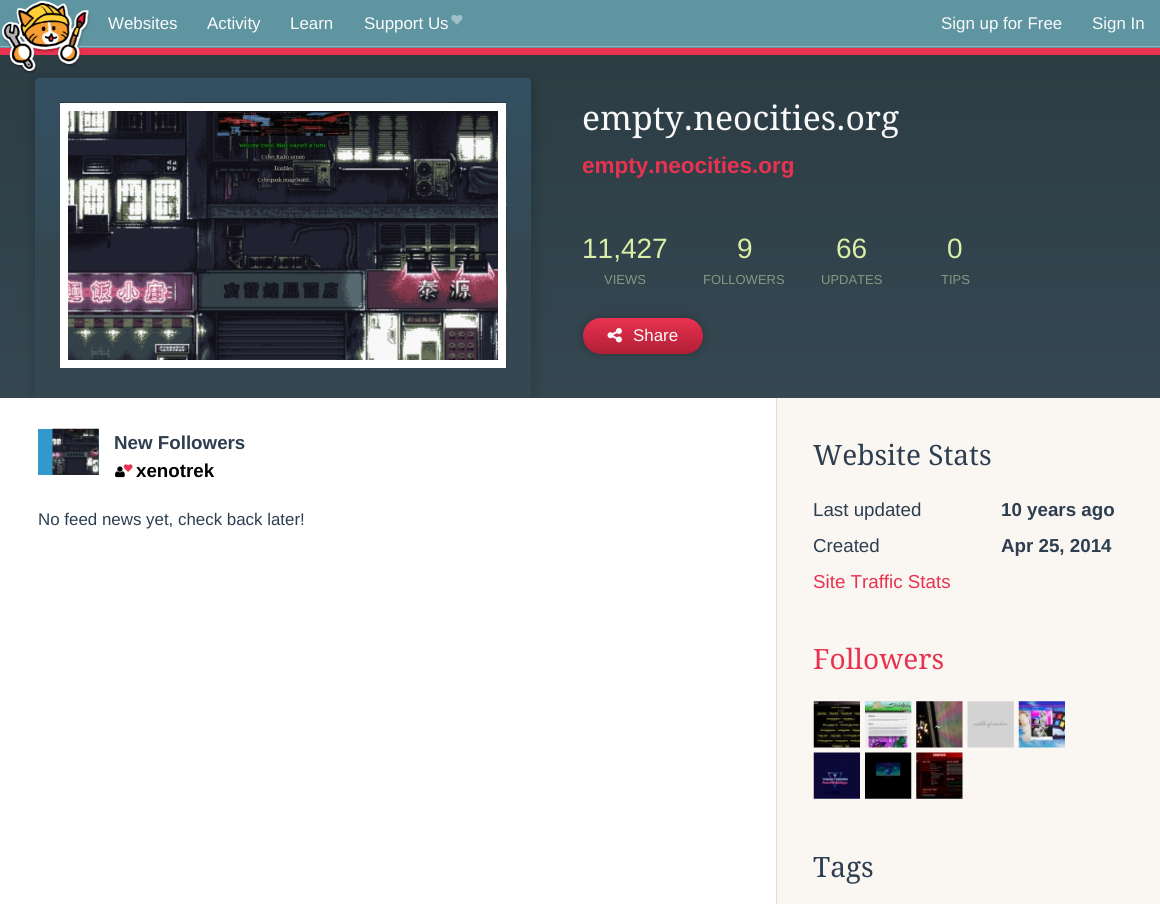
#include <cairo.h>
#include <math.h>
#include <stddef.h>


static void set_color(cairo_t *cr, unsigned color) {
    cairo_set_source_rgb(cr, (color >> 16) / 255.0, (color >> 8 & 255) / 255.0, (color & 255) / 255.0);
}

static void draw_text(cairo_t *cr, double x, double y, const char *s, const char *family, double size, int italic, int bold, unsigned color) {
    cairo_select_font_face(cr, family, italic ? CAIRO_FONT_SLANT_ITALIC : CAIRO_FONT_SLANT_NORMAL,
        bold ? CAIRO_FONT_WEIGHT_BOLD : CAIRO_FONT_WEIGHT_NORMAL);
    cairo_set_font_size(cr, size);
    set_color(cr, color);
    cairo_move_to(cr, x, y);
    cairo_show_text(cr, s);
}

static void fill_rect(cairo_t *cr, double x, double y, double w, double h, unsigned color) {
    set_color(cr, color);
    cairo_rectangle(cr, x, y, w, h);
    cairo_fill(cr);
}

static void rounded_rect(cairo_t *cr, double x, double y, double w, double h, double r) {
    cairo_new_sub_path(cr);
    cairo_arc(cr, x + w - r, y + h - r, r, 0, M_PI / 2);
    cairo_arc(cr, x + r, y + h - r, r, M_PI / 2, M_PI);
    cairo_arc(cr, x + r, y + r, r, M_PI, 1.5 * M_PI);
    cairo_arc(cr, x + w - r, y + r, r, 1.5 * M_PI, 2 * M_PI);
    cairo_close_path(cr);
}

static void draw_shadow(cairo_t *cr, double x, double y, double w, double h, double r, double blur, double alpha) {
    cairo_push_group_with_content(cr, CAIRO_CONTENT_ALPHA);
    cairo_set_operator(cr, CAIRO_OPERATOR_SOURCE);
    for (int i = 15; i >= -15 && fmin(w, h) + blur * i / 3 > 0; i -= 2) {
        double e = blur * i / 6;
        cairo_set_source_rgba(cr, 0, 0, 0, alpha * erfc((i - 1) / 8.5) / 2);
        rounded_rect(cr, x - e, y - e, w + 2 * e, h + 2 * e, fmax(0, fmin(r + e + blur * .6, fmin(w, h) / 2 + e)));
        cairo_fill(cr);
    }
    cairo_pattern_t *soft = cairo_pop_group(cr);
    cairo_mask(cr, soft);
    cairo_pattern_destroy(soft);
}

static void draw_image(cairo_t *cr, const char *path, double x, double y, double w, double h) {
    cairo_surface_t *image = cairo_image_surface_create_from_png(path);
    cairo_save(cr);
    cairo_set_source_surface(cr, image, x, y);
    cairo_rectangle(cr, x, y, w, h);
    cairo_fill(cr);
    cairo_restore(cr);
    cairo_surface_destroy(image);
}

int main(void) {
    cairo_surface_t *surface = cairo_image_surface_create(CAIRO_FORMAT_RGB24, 1160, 904);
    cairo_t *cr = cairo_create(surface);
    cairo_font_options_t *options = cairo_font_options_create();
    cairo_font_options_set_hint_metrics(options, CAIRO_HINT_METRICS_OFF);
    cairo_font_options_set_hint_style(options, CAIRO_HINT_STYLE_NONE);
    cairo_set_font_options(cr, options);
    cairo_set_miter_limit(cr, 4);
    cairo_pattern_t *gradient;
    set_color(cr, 0xFFFFFF);
    cairo_paint(cr);
    gradient = cairo_pattern_create_linear(580, 27, 580, 398);
    cairo_pattern_add_color_stop_rgba(gradient, 0, 0.169, 0.235, 0.263, 1);
    cairo_pattern_add_color_stop_rgba(gradient, 1, 0.208, 0.278, 0.318, 1);
    cairo_set_source(cr, gradient);
    cairo_pattern_destroy(gradient);
    cairo_rectangle(cr, 0, 55, 1160, 343);
    cairo_fill(cr);
    set_color(cr, 0x000000);
    draw_shadow(cr, 34, 78, 501, 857, 8, 7.5, 0.15);
    fill_rect(cr, 0, 48, 1160, 7, 0xE93250);
    fill_rect(cr, 0, 0, 1160, 48, 0x5E95A1);
    fill_rect(cr, 0, 46, 1160, 1, 0x92B4BD);
    draw_image(cr, "assets/img1.png", 1, 0, 90, 73);
    draw_text(cr, 108, 29, "Websites", "Liberation Sans", 16.9, 0, 0, 0xFAFAFA);
    draw_text(cr, 207, 29, "Activity", "Liberation Sans", 16.9, 0, 0, 0xFAFAFA);
    draw_text(cr, 290, 29, "Learn", "Liberation Sans", 16.9, 0, 0, 0xFAFAFA);
    draw_text(cr, 364, 29, "Support Us", "Liberation Sans", 16.9, 0, 0, 0xFAFAFA);
    draw_image(cr, "assets/img2.png", 451, 15, 12, 10);
    draw_text(cr, 941, 29, "Sign up for Free", "Liberation Sans", 16.9, 0, 0, 0xFAFAFA);
    draw_text(cr, 1092, 29, "Sign In", "Liberation Sans", 16.9, 0, 0, 0xFAFAFA);
    set_color(cr, 0x354751);
    cairo_new_path(cr);
    cairo_move_to(cr, 40, 78);
    cairo_line_to(cr, 526, 78);
    cairo_curve_to(cr, 529, 78, 531, 80, 531, 83);
    cairo_line_to(cr, 531, 398);
    cairo_line_to(cr, 35, 398);
    cairo_line_to(cr, 35, 83);
    cairo_curve_to(cr, 35, 80, 37, 78, 40, 78);
    cairo_close_path(cr);
    cairo_fill(cr);
    draw_image(cr, "assets/img3.png", 35, 77, 496, 158);
    draw_image(cr, "assets/img4.png", 60, 102, 447, 266);
    cairo_rectangle(cr, 64, 107, 438, 257);
    set_color(cr, 0xFFFFFF);
    cairo_set_line_width(cr, 8);
    cairo_stroke(cr);
    draw_text(cr, 582, 130, "empty.neocities.org", "Droid Serif", 33.75, 0, 0, 0xFAFAFA);
    draw_text(cr, 582, 173, "empty.neocities.org", "Liberation Sans", 22.5, 0, 1, 0xE93250);
    draw_text(cr, 582, 258, "11,427", "Liberation Sans", 28, 0, 0, 0xDAEEA5);
    draw_text(cr, 604, 284, "VIEWS", "Liberation Sans", 13, 0, 0, 0x84997E);
    draw_text(cr, 737, 258, "9", "Liberation Sans", 28, 0, 0, 0xDAEEA5);
    draw_text(cr, 703, 284, "FOLLOWERS", "Liberation Sans", 13, 0, 0, 0x84997E);
    draw_text(cr, 836, 258, "66", "Liberation Sans", 28, 0, 0, 0xDAEEA5);
    draw_text(cr, 821, 284, "UPDATES", "Liberation Sans", 13, 0, 0, 0x84997E);
    draw_text(cr, 947, 258, "0", "Liberation Sans", 28, 0, 0, 0xDAEEA5);
    draw_text(cr, 941, 284, "TIPS", "Liberation Sans", 13, 0, 0, 0x84997E);
    set_color(cr, 0x000000);
    draw_shadow(cr, 583, 318, 120, 36, 18, 4, 0.25);
    gradient = cairo_pattern_create_linear(643, 318, 643, 354);
    cairo_pattern_add_color_stop_rgba(gradient, 0, 0.914, 0.196, 0.314, 1);
    cairo_pattern_add_color_stop_rgba(gradient, 1, 0.694, 0.122, 0.212, 1);
    cairo_set_source(cr, gradient);
    cairo_pattern_destroy(gradient);
    rounded_rect(cr, 583, 318, 120, 36, 18);
    cairo_fill(cr);
    draw_image(cr, "assets/img5.png", 607, 328, 15, 15);
    draw_text(cr, 633, 341, "Share", "Liberation Sans", 16.9, 0, 0, 0xFAFAFA);
    fill_rect(cr, 777, 398, 383, 506, 0xFAF6F1);
    fill_rect(cr, 776, 398, 1, 506, 0xDDDDDD);
    fill_rect(cr, 23, 398, 523, 506, 0xFFFFFF);
    fill_rect(cr, 38, 429, 61, 46, 0x3399CC);
    draw_image(cr, "assets/img6.png", 52, 428, 47, 47);
    draw_text(cr, 114, 449, "New Followers", "Liberation Sans", 18.75, 0, 1, 0x2C3E50);
    draw_image(cr, "assets/img7.png", 115, 466, 10, 12);
    draw_image(cr, "assets/img8.png", 123, 464, 10, 8);
    draw_text(cr, 136, 477, "xenotrek", "Liberation Sans", 18.75, 0, 1, 0x000000);
    draw_text(cr, 38, 525, "No feed news yet, check back later!", "Liberation Sans", 16.9, 0, 0, 0x2C3E50);
    draw_text(cr, 813, 465, "Website Stats", "Droid Serif", 28, 0, 0, 0x2C3E50);
    draw_text(cr, 813, 516, "Last updated", "Liberation Sans", 18.75, 0, 0, 0x2C3E50);
    draw_text(cr, 1001, 516, "10 years ago", "Liberation Sans", 18.75, 0, 1, 0x2C3E50);
    draw_text(cr, 813, 552, "Created", "Liberation Sans", 18.75, 0, 0, 0x2C3E50);
    draw_text(cr, 1001, 552, "Apr 25, 2014", "Liberation Sans", 18.75, 0, 1, 0x2C3E50);
    draw_text(cr, 813, 588, "Site Traffic Stats", "Liberation Sans", 18.75, 0, 0, 0xE93250);
    draw_text(cr, 813, 669, "Followers", "Droid Serif", 28, 0, 0, 0xE93250);
    draw_image(cr, "assets/img9.png", 813, 701, 47, 47);
    draw_image(cr, "assets/img10.png", 865, 701, 47, 47);
    draw_image(cr, "assets/img11.png", 916, 701, 47, 47);
    draw_image(cr, "assets/img12.png", 967, 701, 47, 47);
    draw_image(cr, "assets/img13.png", 1018, 701, 47, 47);
    draw_image(cr, "assets/img14.png", 813, 752, 47, 47);
    draw_image(cr, "assets/img15.png", 865, 752, 47, 47);
    draw_image(cr, "assets/img16.png", 916, 752, 47, 47);
    draw_text(cr, 813, 877, "Tags", "Droid Serif", 28, 0, 0, 0x2C3E50);
    cairo_surface_write_to_png(surface, "output.png");
    cairo_font_options_destroy(options);
    cairo_destroy(cr);
    cairo_surface_destroy(surface);
    return 0;
}
